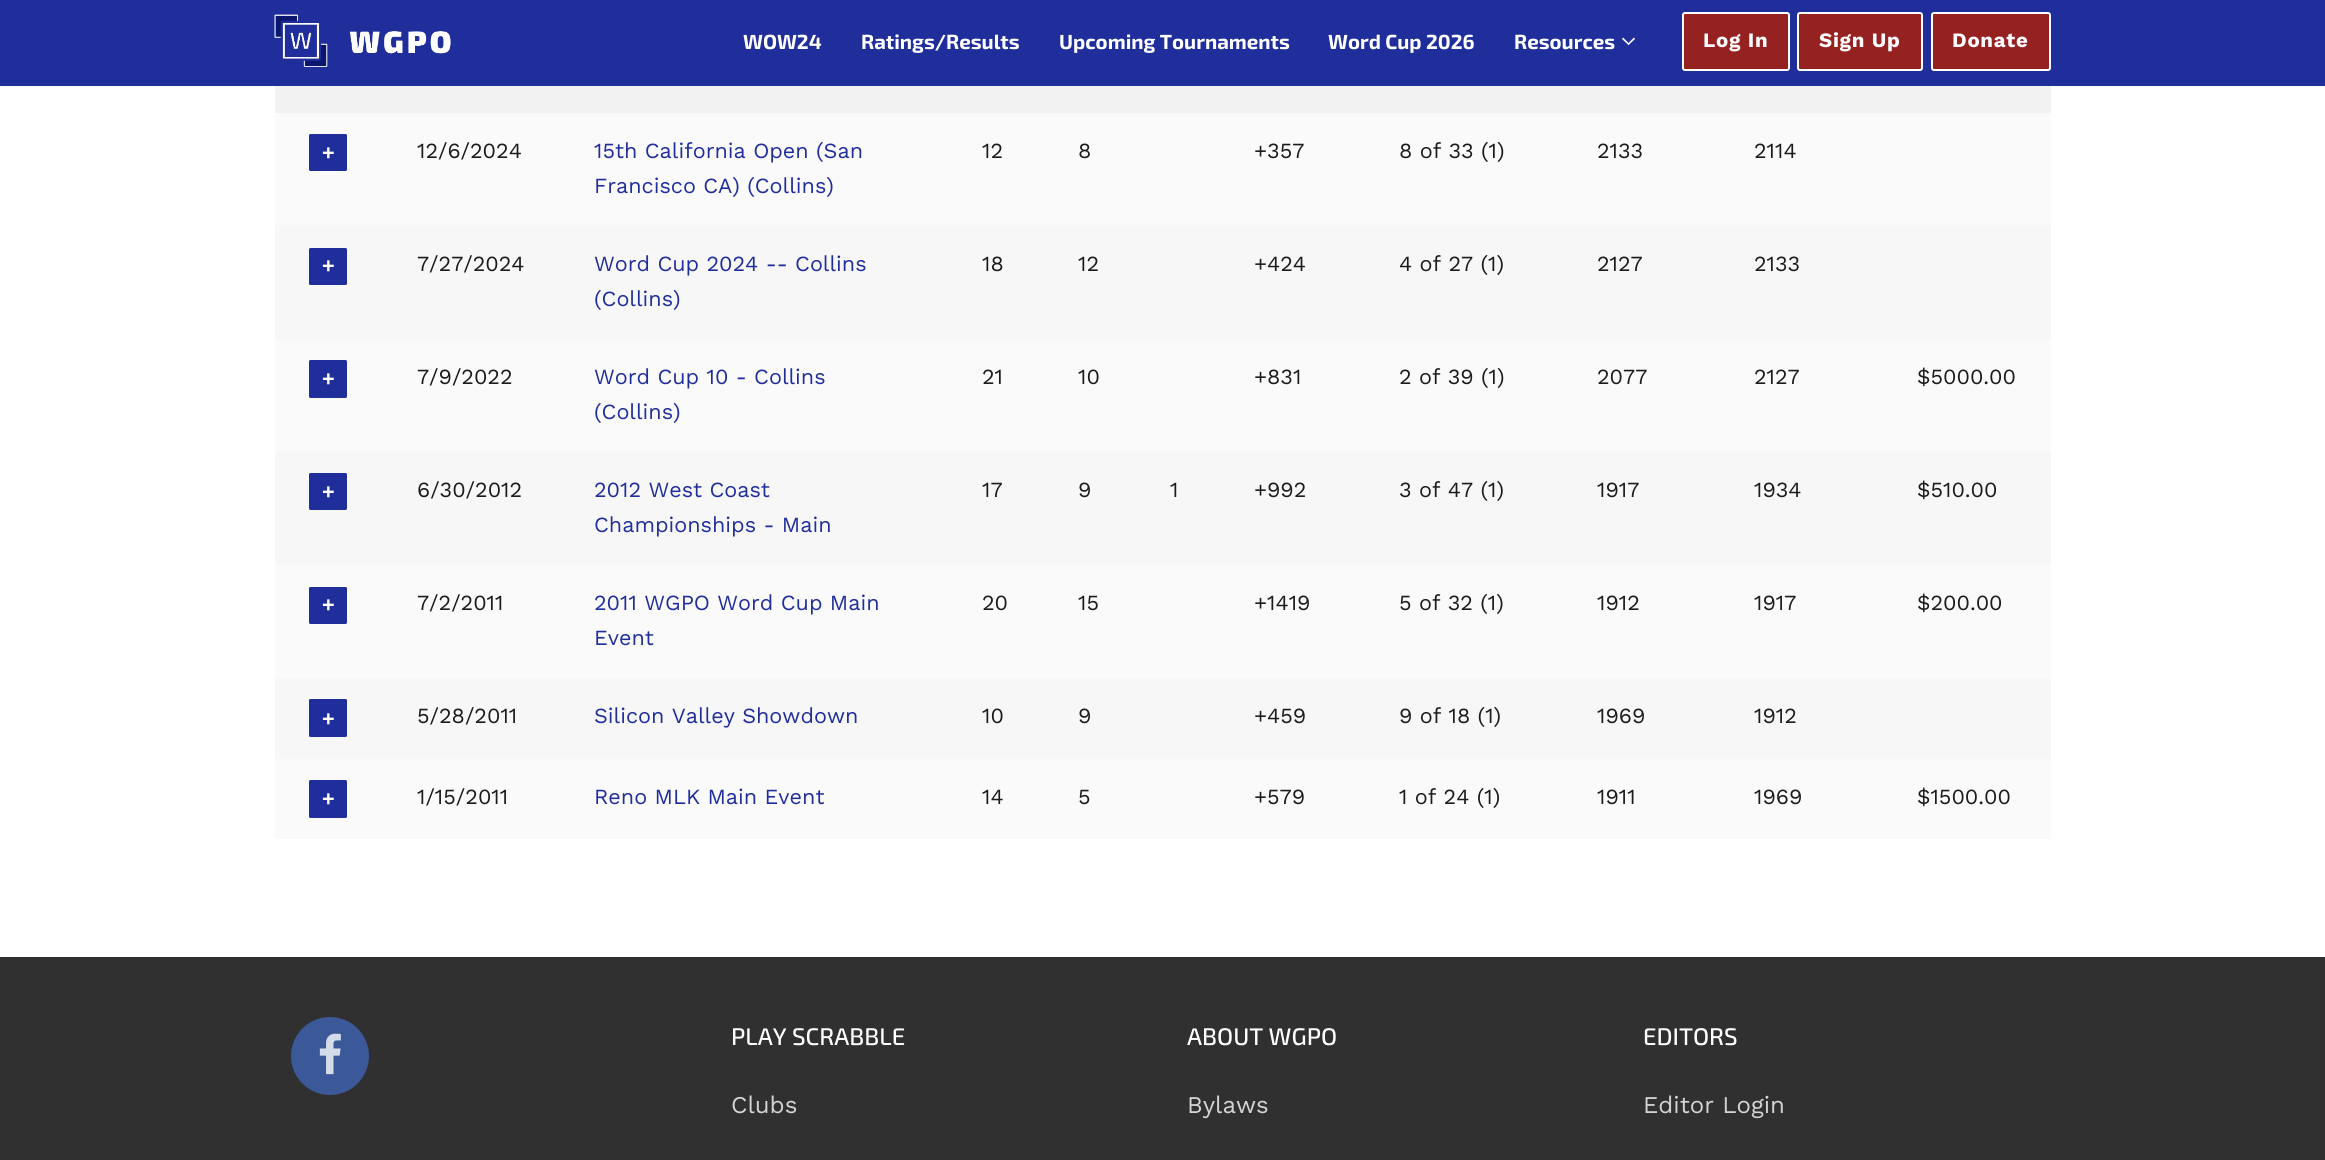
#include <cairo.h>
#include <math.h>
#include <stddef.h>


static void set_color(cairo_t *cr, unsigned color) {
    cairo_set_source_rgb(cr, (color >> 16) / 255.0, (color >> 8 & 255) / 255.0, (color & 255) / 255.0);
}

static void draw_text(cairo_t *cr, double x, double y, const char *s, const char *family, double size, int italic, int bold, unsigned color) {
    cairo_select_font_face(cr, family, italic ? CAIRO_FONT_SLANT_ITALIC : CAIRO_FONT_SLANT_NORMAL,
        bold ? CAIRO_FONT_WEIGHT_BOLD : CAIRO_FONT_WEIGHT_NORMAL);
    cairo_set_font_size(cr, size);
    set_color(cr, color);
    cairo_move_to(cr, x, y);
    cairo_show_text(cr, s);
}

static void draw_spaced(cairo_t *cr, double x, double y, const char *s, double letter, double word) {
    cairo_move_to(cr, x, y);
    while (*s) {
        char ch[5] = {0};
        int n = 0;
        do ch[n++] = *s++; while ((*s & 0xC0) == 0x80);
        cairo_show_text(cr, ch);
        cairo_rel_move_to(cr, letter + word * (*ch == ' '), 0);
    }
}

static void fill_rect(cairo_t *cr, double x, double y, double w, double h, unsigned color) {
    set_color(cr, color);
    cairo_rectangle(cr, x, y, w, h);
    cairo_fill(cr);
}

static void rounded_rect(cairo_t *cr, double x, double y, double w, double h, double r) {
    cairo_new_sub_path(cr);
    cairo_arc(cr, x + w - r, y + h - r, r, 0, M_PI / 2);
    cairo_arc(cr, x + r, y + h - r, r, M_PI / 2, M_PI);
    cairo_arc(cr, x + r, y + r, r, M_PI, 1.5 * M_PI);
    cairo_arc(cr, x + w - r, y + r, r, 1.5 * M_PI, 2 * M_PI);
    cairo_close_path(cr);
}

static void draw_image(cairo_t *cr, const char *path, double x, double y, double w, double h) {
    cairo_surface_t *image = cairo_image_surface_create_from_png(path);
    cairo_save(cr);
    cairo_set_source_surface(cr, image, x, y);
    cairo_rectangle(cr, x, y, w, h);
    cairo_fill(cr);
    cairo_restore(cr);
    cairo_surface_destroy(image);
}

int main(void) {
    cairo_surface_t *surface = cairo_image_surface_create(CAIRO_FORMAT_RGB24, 2325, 1160);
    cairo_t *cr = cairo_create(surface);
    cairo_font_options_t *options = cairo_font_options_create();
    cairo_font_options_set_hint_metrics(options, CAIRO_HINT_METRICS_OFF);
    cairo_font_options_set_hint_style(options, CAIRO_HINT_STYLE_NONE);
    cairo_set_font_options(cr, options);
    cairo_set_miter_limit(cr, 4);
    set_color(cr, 0xFFFFFF);
    cairo_paint(cr);
    fill_rect(cr, 0, 0, 2325, 86, 0x202E9B);
    draw_image(cr, "assets/img1.png", 274, 14, 177, 53);
    draw_text(cr, 743, 49, "WOW24", "Exo 2", 20.4, 0, 1, 0xFFFFFF);
    draw_text(cr, 861, 49, "Ratings/Results", "Exo 2", 20.4, 0, 1, 0xFFFFFF);
    draw_text(cr, 1059, 49, "Upcoming Tournaments", "Exo 2", 20.4, 0, 1, 0xFFFFFF);
    draw_text(cr, 1328, 49, "Word Cup 2026", "Exo 2", 20.4, 0, 1, 0xFFFFFF);
    draw_text(cr, 1514, 49, "Resources", "Exo 2", 20.4, 0, 1, 0xFFFFFF);
    cairo_new_path(cr);
    cairo_move_to(cr, 1628.5, 45);
    cairo_line_to(cr, 1622, 39);
    cairo_line_to(cr, 1623, 37.5);
    cairo_line_to(cr, 1629.5, 44);
    cairo_close_path(cr);
    cairo_fill(cr);
    cairo_new_path(cr);
    cairo_move_to(cr, 1628.5, 45);
    cairo_line_to(cr, 1627.5, 44);
    cairo_line_to(cr, 1634, 37.5);
    cairo_line_to(cr, 1635, 39);
    cairo_close_path(cr);
    cairo_fill(cr);
    set_color(cr, 0x962121);
    rounded_rect(cr, 1683, 13, 106, 57, 2);
    cairo_fill_preserve(cr);
    set_color(cr, 0xFFFFFF);
    cairo_stroke(cr);
    cairo_select_font_face(cr, "Work Sans", CAIRO_FONT_SLANT_NORMAL, CAIRO_FONT_WEIGHT_BOLD);
    draw_spaced(cr, 1703, 47, "Log In", 0.75, 0);
    set_color(cr, 0x962121);
    rounded_rect(cr, 1798, 13, 124, 57, 2);
    cairo_fill_preserve(cr);
    set_color(cr, 0xFFFFFF);
    cairo_stroke(cr);
    draw_spaced(cr, 1819, 47, "Sign Up", 0.75, 0);
    set_color(cr, 0x962121);
    rounded_rect(cr, 1932, 13, 118, 57, 2);
    cairo_fill_preserve(cr);
    set_color(cr, 0xFFFFFF);
    cairo_stroke(cr);
    draw_spaced(cr, 1952, 47, "Donate", 0.75, 0);
    fill_rect(cr, 275, 86, 1776, 27, 0xF2F2F2);
    fill_rect(cr, 275, 113, 1776, 112, 0xFAFAFA);
    set_color(cr, 0x202E9B);
    rounded_rect(cr, 309, 134, 38, 37, 1.5);
    cairo_fill(cr);
    draw_text(cr, 322, 160, "+", "Liberation Sans", 21.6, 0, 1, 0xFFFFFF);
    draw_text(cr, 417, 158, "12/6/2024", "Work Sans", 21.6, 0, 0, 0x1C1C1C);
    draw_text(cr, 594, 158, "15th California Open (San", "Work Sans", 21.6, 0, 0, 0x202E9B);
    draw_text(cr, 594, 193, "Francisco CA) (Collins)", "Work Sans", 21.6, 0, 0, 0x202E9B);
    draw_text(cr, 982, 158, "12", "Work Sans", 21.6, 0, 0, 0x1C1C1C);
    draw_text(cr, 1078, 158, "8", "Work Sans", 21.6, 0, 0, 0x1C1C1C);
    draw_text(cr, 1254, 158, "+357", "Work Sans", 21.6, 0, 0, 0x1C1C1C);
    draw_text(cr, 1399, 158, "8 of 33 (1)", "Work Sans", 21.6, 0, 0, 0x1C1C1C);
    draw_text(cr, 1597, 158, "2133", "Work Sans", 21.6, 0, 0, 0x1C1C1C);
    draw_text(cr, 1754, 158, "2114", "Work Sans", 21.6, 0, 0, 0x1C1C1C);
    fill_rect(cr, 275, 225, 1776, 114, 0xF7F7F7);
    set_color(cr, 0x202E9B);
    rounded_rect(cr, 309, 248, 38, 37, 1.5);
    cairo_fill(cr);
    draw_text(cr, 322, 273, "+", "Liberation Sans", 21.6, 0, 1, 0xFFFFFF);
    draw_text(cr, 417, 271, "7/27/2024", "Work Sans", 21.6, 0, 0, 0x1C1C1C);
    draw_text(cr, 594, 271, "Word Cup 2024 -- Collins", "Work Sans", 21.6, 0, 0, 0x202E9B);
    draw_text(cr, 594, 306, "(Collins)", "Work Sans", 21.6, 0, 0, 0x202E9B);
    draw_text(cr, 982, 271, "18", "Work Sans", 21.6, 0, 0, 0x1C1C1C);
    draw_text(cr, 1078, 271, "12", "Work Sans", 21.6, 0, 0, 0x1C1C1C);
    draw_text(cr, 1254, 271, "+424", "Work Sans", 21.6, 0, 0, 0x1C1C1C);
    draw_text(cr, 1399, 271, "4 of 27 (1)", "Work Sans", 21.6, 0, 0, 0x1C1C1C);
    draw_text(cr, 1597, 271, "2127", "Work Sans", 21.6, 0, 0, 0x1C1C1C);
    draw_text(cr, 1754, 271, "2133", "Work Sans", 21.6, 0, 0, 0x1C1C1C);
    fill_rect(cr, 275, 339, 1776, 113, 0xFAFAFA);
    set_color(cr, 0x202E9B);
    rounded_rect(cr, 309, 360, 38, 38, 1.5);
    cairo_fill(cr);
    draw_text(cr, 322, 386, "+", "Liberation Sans", 21.6, 0, 1, 0xFFFFFF);
    draw_text(cr, 417, 384, "7/9/2022", "Work Sans", 21.6, 0, 0, 0x1C1C1C);
    draw_text(cr, 594, 384, "Word Cup 10 - Collins", "Work Sans", 21.6, 0, 0, 0x202E9B);
    draw_text(cr, 594, 419, "(Collins)", "Work Sans", 21.6, 0, 0, 0x202E9B);
    draw_text(cr, 982, 384, "21", "Work Sans", 21.6, 0, 0, 0x1C1C1C);
    draw_text(cr, 1078, 384, "10", "Work Sans", 21.6, 0, 0, 0x1C1C1C);
    draw_text(cr, 1254, 384, "+831", "Work Sans", 21.6, 0, 0, 0x1C1C1C);
    draw_text(cr, 1399, 384, "2 of 39 (1)", "Work Sans", 21.6, 0, 0, 0x1C1C1C);
    draw_text(cr, 1597, 384, "2077", "Work Sans", 21.6, 0, 0, 0x1C1C1C);
    draw_text(cr, 1754, 384, "2127", "Work Sans", 21.6, 0, 0, 0x1C1C1C);
    draw_text(cr, 1917, 384, "$5000.00", "Work Sans", 21.6, 0, 0, 0x1C1C1C);
    fill_rect(cr, 275, 452, 1776, 112, 0xF7F7F7);
    set_color(cr, 0x202E9B);
    rounded_rect(cr, 309, 473, 38, 37, 1.5);
    cairo_fill(cr);
    draw_text(cr, 322, 499, "+", "Liberation Sans", 21.6, 0, 1, 0xFFFFFF);
    draw_text(cr, 417, 497, "6/30/2012", "Work Sans", 21.6, 0, 0, 0x1C1C1C);
    draw_text(cr, 594, 497, "2012 West Coast", "Work Sans", 21.6, 0, 0, 0x202E9B);
    draw_text(cr, 594, 532, "Championships - Main", "Work Sans", 21.6, 0, 0, 0x202E9B);
    draw_text(cr, 982, 497, "17", "Work Sans", 21.6, 0, 0, 0x1C1C1C);
    draw_text(cr, 1078, 497, "9", "Work Sans", 21.6, 0, 0, 0x1C1C1C);
    draw_text(cr, 1170, 497, "1", "Work Sans", 21.6, 0, 0, 0x1C1C1C);
    draw_text(cr, 1254, 497, "+992", "Work Sans", 21.6, 0, 0, 0x1C1C1C);
    draw_text(cr, 1399, 497, "3 of 47 (1)", "Work Sans", 21.6, 0, 0, 0x1C1C1C);
    draw_text(cr, 1597, 497, "1917", "Work Sans", 21.6, 0, 0, 0x1C1C1C);
    draw_text(cr, 1754, 497, "1934", "Work Sans", 21.6, 0, 0, 0x1C1C1C);
    draw_text(cr, 1917, 497, "$510.00", "Work Sans", 21.6, 0, 0, 0x1C1C1C);
    fill_rect(cr, 275, 564, 1776, 114, 0xFAFAFA);
    set_color(cr, 0x202E9B);
    rounded_rect(cr, 309, 587, 38, 37, 1.5);
    cairo_fill(cr);
    draw_text(cr, 322, 612, "+", "Liberation Sans", 21.6, 0, 1, 0xFFFFFF);
    draw_text(cr, 417, 610, "7/2/2011", "Work Sans", 21.6, 0, 0, 0x1C1C1C);
    draw_text(cr, 594, 610, "2011 WGPO Word Cup Main", "Work Sans", 21.6, 0, 0, 0x202E9B);
    draw_text(cr, 594, 645, "Event", "Work Sans", 21.6, 0, 0, 0x202E9B);
    draw_text(cr, 982, 610, "20", "Work Sans", 21.6, 0, 0, 0x1C1C1C);
    draw_text(cr, 1078, 610, "15", "Work Sans", 21.6, 0, 0, 0x1C1C1C);
    draw_text(cr, 1254, 610, "+1419", "Work Sans", 21.6, 0, 0, 0x1C1C1C);
    draw_text(cr, 1399, 610, "5 of 32 (1)", "Work Sans", 21.6, 0, 0, 0x1C1C1C);
    draw_text(cr, 1597, 610, "1912", "Work Sans", 21.6, 0, 0, 0x1C1C1C);
    draw_text(cr, 1754, 610, "1917", "Work Sans", 21.6, 0, 0, 0x1C1C1C);
    draw_text(cr, 1917, 610, "$200.00", "Work Sans", 21.6, 0, 0, 0x1C1C1C);
    fill_rect(cr, 275, 678, 1776, 81, 0xF7F7F7);
    set_color(cr, 0x202E9B);
    rounded_rect(cr, 309, 699, 38, 38, 1.5);
    cairo_fill(cr);
    draw_text(cr, 322, 726, "+", "Liberation Sans", 21.6, 0, 1, 0xFFFFFF);
    draw_text(cr, 417, 723, "5/28/2011", "Work Sans", 21.6, 0, 0, 0x1C1C1C);
    draw_text(cr, 594, 723, "Silicon Valley Showdown", "Work Sans", 21.6, 0, 0, 0x202E9B);
    draw_text(cr, 982, 723, "10", "Work Sans", 21.6, 0, 0, 0x1C1C1C);
    draw_text(cr, 1078, 723, "9", "Work Sans", 21.6, 0, 0, 0x1C1C1C);
    draw_text(cr, 1254, 723, "+459", "Work Sans", 21.6, 0, 0, 0x1C1C1C);
    draw_text(cr, 1399, 723, "9 of 18 (1)", "Work Sans", 21.6, 0, 0, 0x1C1C1C);
    draw_text(cr, 1597, 723, "1969", "Work Sans", 21.6, 0, 0, 0x1C1C1C);
    draw_text(cr, 1754, 723, "1912", "Work Sans", 21.6, 0, 0, 0x1C1C1C);
    fill_rect(cr, 275, 759, 1776, 80, 0xFAFAFA);
    set_color(cr, 0x202E9B);
    rounded_rect(cr, 309, 780, 38, 38, 1.5);
    cairo_fill(cr);
    draw_text(cr, 322, 806, "+", "Liberation Sans", 21.6, 0, 1, 0xFFFFFF);
    draw_text(cr, 417, 804, "1/15/2011", "Work Sans", 21.6, 0, 0, 0x1C1C1C);
    draw_text(cr, 594, 804, "Reno MLK Main Event", "Work Sans", 21.6, 0, 0, 0x202E9B);
    draw_text(cr, 982, 804, "14", "Work Sans", 21.6, 0, 0, 0x1C1C1C);
    draw_text(cr, 1078, 804, "5", "Work Sans", 21.6, 0, 0, 0x1C1C1C);
    draw_text(cr, 1254, 804, "+579", "Work Sans", 21.6, 0, 0, 0x1C1C1C);
    draw_text(cr, 1399, 804, "1 of 24 (1)", "Work Sans", 21.6, 0, 0, 0x1C1C1C);
    draw_text(cr, 1597, 804, "1911", "Work Sans", 21.6, 0, 0, 0x1C1C1C);
    draw_text(cr, 1754, 804, "1969", "Work Sans", 21.6, 0, 0, 0x1C1C1C);
    draw_text(cr, 1917, 804, "$1500.00", "Work Sans", 21.6, 0, 0, 0x1C1C1C);
    fill_rect(cr, 0, 957, 2325, 203, 0x303030);
    set_color(cr, 0x3B5998);
    cairo_new_path(cr);
    cairo_arc(cr, 330, 1056, 39, 0, 2 * M_PI);
    cairo_fill(cr);
    draw_image(cr, "assets/img2.png", 319, 1033, 22, 42);
    draw_text(cr, 731, 1045, "PLAY SCRABBLE", "Exo 2 Medium", 24, 0, 0, 0xFFFFFF);
    draw_text(cr, 731, 1113, "Clubs", "Work Sans", 24, 0, 0, 0xD4D4D4);
    draw_text(cr, 1187, 1045, "ABOUT WGPO", "Exo 2 Medium", 24, 0, 0, 0xFFFFFF);
    draw_text(cr, 1187, 1113, "Bylaws", "Work Sans", 24, 0, 0, 0xD4D4D4);
    draw_text(cr, 1643, 1045, "EDITORS", "Exo 2 Medium", 24, 0, 0, 0xFFFFFF);
    draw_text(cr, 1643, 1113, "Editor Login", "Work Sans", 24, 0, 0, 0xD4D4D4);
    cairo_surface_write_to_png(surface, "output.png");
    cairo_font_options_destroy(options);
    cairo_destroy(cr);
    cairo_surface_destroy(surface);
    return 0;
}
